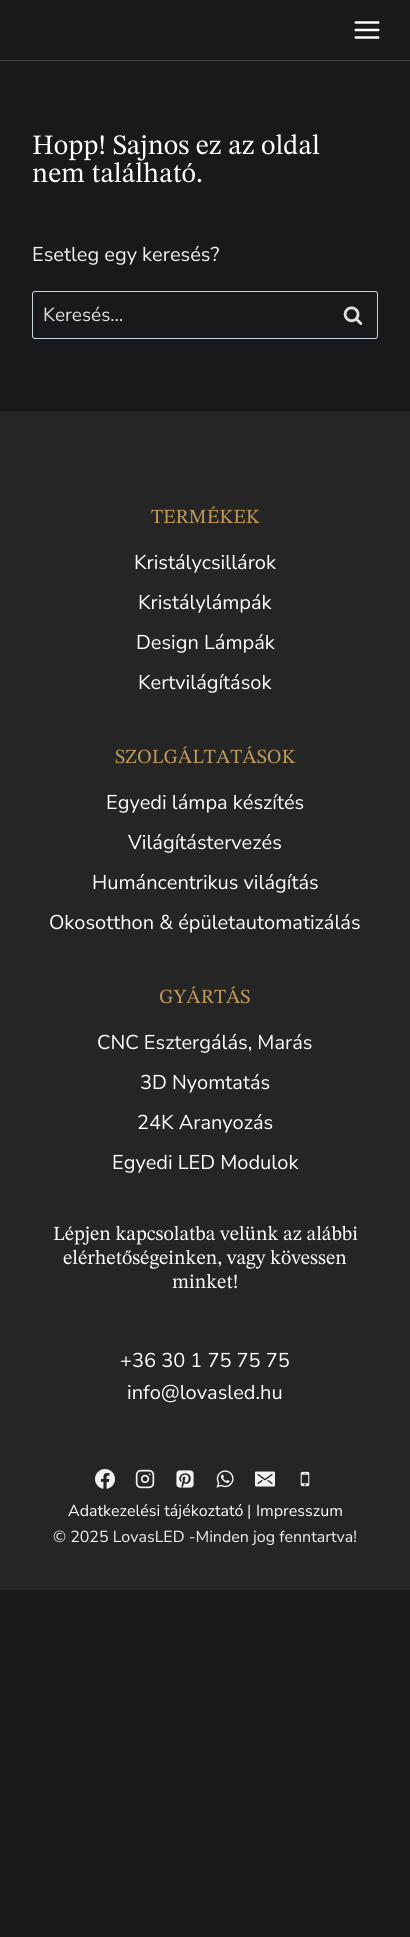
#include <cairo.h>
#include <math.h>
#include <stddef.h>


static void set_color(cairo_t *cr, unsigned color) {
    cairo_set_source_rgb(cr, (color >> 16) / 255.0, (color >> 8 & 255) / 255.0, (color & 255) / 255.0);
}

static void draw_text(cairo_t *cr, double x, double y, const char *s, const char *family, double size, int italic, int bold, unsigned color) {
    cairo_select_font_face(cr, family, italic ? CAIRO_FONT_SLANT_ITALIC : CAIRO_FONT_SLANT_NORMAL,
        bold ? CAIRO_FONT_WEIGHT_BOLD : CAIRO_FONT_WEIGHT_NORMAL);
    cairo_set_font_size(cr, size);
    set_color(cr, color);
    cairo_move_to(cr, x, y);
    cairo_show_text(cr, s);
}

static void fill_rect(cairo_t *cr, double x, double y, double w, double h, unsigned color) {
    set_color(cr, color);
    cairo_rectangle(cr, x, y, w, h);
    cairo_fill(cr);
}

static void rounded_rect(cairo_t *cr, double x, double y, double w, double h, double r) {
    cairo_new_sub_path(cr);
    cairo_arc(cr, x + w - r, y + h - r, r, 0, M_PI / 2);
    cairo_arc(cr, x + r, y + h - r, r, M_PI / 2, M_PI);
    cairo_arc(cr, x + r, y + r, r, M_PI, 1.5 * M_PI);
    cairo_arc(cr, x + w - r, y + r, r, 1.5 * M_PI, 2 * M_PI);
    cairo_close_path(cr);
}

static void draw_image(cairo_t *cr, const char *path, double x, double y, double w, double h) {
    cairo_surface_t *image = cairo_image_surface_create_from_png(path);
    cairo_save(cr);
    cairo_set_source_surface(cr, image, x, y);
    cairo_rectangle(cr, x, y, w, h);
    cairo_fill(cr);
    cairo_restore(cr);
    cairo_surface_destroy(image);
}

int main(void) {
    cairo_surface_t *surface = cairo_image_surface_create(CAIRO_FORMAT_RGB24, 410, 1937);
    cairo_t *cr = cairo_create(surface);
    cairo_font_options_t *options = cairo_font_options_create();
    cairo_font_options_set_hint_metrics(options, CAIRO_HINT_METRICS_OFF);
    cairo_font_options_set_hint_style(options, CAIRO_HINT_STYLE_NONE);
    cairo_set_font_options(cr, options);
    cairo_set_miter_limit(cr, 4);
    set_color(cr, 0x19191B);
    cairo_paint(cr);
    fill_rect(cr, 0, 60, 410, 1, 0x4B4536);
    draw_image(cr, "assets/img1.png", 354, 21, 26, 18);
    draw_text(cr, 32, 154, "Hopp! Sajnos ez az oldal", "STIX Two Text", 28, 0, 0, 0xFFFFFF);
    draw_text(cr, 32, 182, "nem található.", "STIX Two Text", 28, 0, 0, 0xFFFFFF);
    draw_text(cr, 32, 261, "Esetleg egy keresés?", "Nunito Sans", 20, 0, 0, 0xF2F2F2);
    rounded_rect(cr, 32.5, 291.5, 345, 47, 2.5);
    set_color(cr, 0xCBD5E0);
    cairo_set_line_width(cr, 1);
    cairo_stroke(cr);
    draw_text(cr, 43, 321, "Keresés…", "Nunito Sans", 19, 0, 0, 0xE1E1E1);
    draw_image(cr, "assets/img2.png", 343, 306, 20, 19);
    fill_rect(cr, 0, 411, 410, 1179, 0x252526);
    draw_text(cr, 151, 523, "TERMÉKEK", "STIX Two Text", 20, 0, 0, 0xC19A5B);
    draw_text(cr, 134, 569, "Kristálycsillárok", "Nunito Sans", 20, 0, 0, 0xFFFFFF);
    draw_text(cr, 138, 609, "Kristálylámpák", "Nunito Sans", 20, 0, 0, 0xFFFFFF);
    draw_text(cr, 136, 649, "Design Lámpák", "Nunito Sans", 20, 0, 0, 0xFFFFFF);
    draw_text(cr, 138, 689, "Kertvilágítások", "Nunito Sans", 20, 0, 0, 0xFFFFFF);
    draw_text(cr, 115, 763, "SZOLGÁLTATÁSOK", "STIX Two Text", 20, 0, 0, 0xC19A5B);
    draw_text(cr, 106, 809, "Egyedi lámpa készítés", "Nunito Sans", 20, 0, 0, 0xFFFFFF);
    draw_text(cr, 128, 849, "Világítástervezés", "Nunito Sans", 20, 0, 0, 0xFFFFFF);
    draw_text(cr, 92, 889, "Humáncentrikus világítás", "Nunito Sans", 20, 0, 0, 0xFFFFFF);
    draw_text(cr, 49, 929, "Okosotthon & épületautomatizálás", "Nunito Sans", 20, 0, 0, 0xFFFFFF);
    draw_text(cr, 159, 1003, "GYÁRTÁS", "STIX Two Text", 20, 0, 0, 0xC19A5B);
    draw_text(cr, 97, 1049, "CNC Esztergálás, Marás", "Nunito Sans", 20, 0, 0, 0xFFFFFF);
    draw_text(cr, 140, 1089, "3D Nyomtatás", "Nunito Sans", 20, 0, 0, 0xFFFFFF);
    draw_text(cr, 137, 1129, "24K Aranyozás", "Nunito Sans", 20, 0, 0, 0xFFFFFF);
    draw_text(cr, 112, 1169, "Egyedi LED Modulok", "Nunito Sans", 20, 0, 0, 0xFFFFFF);
    draw_text(cr, 53, 1240, "Lépjen kapcsolatba velünk az alábbi", "STIX Two Text", 20, 0, 0, 0xFFFFFF);
    draw_text(cr, 63, 1264, "elérhetőségeinken, vagy kövessen", "STIX Two Text", 20, 0, 0, 0xFFFFFF);
    draw_text(cr, 172, 1288, "minket!", "STIX Two Text", 20, 0, 0, 0xFFFFFF);
    draw_text(cr, 120, 1367, "+36 30 1 75 75 75", "Nunito Sans", 20, 0, 0, 0xFFFFFF);
    draw_text(cr, 127, 1399, "info@lovasled.hu", "Nunito Sans", 20, 0, 0, 0xFFFFFF);
    draw_image(cr, "assets/img3.png", 95, 1469, 20, 20);
    draw_image(cr, "assets/img4.png", 135, 1469, 20, 20);
    draw_image(cr, "assets/img5.png", 176, 1470, 18, 18);
    draw_image(cr, "assets/img6.png", 216, 1470, 18, 18);
    draw_image(cr, "assets/img7.png", 255, 1471, 20, 16);
    draw_image(cr, "assets/img8.png", 300, 1471, 10, 16);
    draw_text(cr, 68, 1516, "Adatkezelési tájékoztató", "Nunito Sans", 16, 0, 0, 0xFFFFFF);
    draw_text(cr, 247, 1516, "|", "Nunito Sans", 16, 0, 0, 0xF2F2F2);
    draw_text(cr, 256, 1516, "Impresszum", "Nunito Sans", 16, 0, 0, 0xFFFFFF);
    draw_text(cr, 53, 1542, "© 2025 LovasLED -Minden jog fenntartva!", "Nunito Sans", 16, 0, 0, 0xF2F2F2);
    cairo_surface_write_to_png(surface, "output.png");
    cairo_font_options_destroy(options);
    cairo_destroy(cr);
    cairo_surface_destroy(surface);
    return 0;
}
